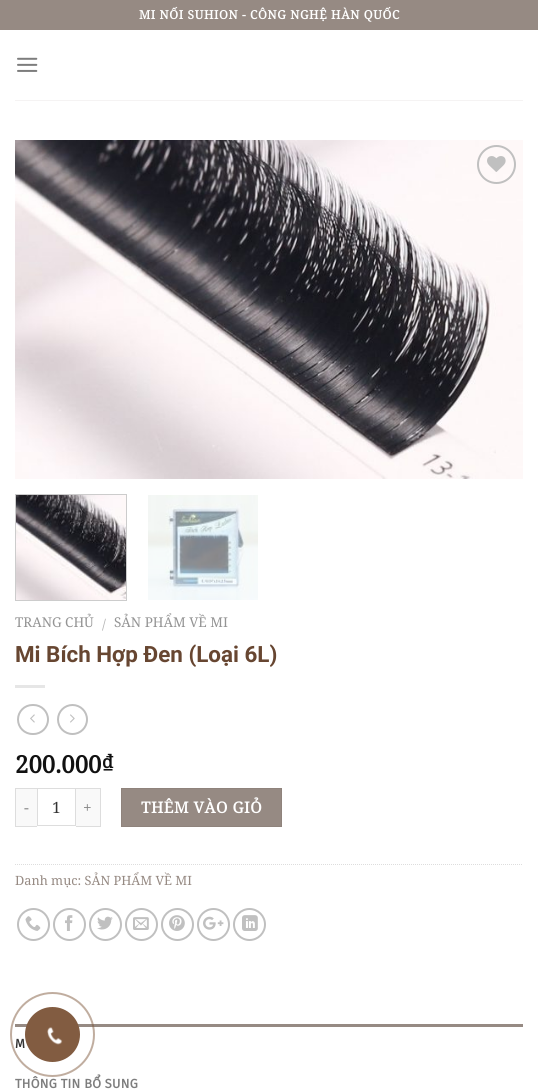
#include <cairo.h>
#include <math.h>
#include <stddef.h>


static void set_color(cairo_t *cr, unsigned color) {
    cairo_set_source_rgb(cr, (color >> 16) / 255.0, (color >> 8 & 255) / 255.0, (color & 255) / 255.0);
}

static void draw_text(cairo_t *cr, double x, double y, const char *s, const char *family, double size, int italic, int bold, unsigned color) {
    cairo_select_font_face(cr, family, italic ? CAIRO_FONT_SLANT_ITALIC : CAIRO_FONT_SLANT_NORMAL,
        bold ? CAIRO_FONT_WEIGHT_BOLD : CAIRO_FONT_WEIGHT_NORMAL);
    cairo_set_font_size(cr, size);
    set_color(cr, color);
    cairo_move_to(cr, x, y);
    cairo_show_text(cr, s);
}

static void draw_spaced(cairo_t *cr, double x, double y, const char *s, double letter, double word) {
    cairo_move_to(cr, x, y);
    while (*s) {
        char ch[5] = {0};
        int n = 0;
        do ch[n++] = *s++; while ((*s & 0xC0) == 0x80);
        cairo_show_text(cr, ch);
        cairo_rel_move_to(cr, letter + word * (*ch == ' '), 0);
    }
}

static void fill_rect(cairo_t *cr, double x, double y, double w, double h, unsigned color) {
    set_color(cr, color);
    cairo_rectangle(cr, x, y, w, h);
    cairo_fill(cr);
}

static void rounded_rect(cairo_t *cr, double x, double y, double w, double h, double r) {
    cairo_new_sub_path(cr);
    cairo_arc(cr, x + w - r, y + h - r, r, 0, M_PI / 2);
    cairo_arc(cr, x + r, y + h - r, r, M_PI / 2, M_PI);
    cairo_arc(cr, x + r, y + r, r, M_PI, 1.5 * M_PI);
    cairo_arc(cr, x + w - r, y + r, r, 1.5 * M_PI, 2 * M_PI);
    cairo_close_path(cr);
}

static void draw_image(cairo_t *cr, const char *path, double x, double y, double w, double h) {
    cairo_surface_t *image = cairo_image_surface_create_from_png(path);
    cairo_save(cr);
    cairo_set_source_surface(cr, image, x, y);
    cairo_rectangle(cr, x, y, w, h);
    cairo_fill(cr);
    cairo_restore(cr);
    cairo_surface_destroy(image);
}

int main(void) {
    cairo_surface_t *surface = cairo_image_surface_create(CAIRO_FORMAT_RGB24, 538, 1092);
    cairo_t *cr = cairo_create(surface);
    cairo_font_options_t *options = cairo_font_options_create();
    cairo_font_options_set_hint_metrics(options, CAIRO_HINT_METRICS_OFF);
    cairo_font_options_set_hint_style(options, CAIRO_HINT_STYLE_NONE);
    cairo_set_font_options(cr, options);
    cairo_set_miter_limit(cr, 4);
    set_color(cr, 0xFFFFFF);
    cairo_paint(cr);
    fill_rect(cr, 0, 0, 538, 30, 0x968A83);
    cairo_select_font_face(cr, "Noto Serif", CAIRO_FONT_SLANT_NORMAL, CAIRO_FONT_WEIGHT_BOLD);
    cairo_set_font_size(cr, 12);
    set_color(cr, 0xFFFFFF);
    draw_spaced(cr, 139, 19, "MI NỐI SUHION - CÔNG NGHỆ HÀN QUỐC", 0.6, 0);
    draw_image(cr, "assets/img1.png", 17, 57, 21, 15);
    fill_rect(cr, 15, 100, 508, 1, 0xF5F3F3);
    draw_image(cr, "assets/img2.png", 15, 140, 508, 339);
    cairo_arc(cr, 496.5, 164.5, 18.5, 0, 2 * M_PI);
    set_color(cr, 0xC0C0C0);
    cairo_stroke(cr);
    draw_image(cr, "assets/img3.png", 487, 156, 19, 16);
    cairo_rectangle(cr, 15.5, 494.5, 111, 106);
    set_color(cr, 0xCCCCCC);
    cairo_set_line_width(cr, 1);
    cairo_stroke(cr);
    draw_image(cr, "assets/img4.png", 16, 495, 110, 105);
    draw_image(cr, "assets/img5.png", 148, 495, 110, 105);
    draw_text(cr, 15, 627, "TRANG CHỦ", "Noto Serif", 13.5, 0, 0, 0x949494);
    draw_text(cr, 102, 629, "/", "Noto Serif", 13.5, 0, 0, 0xB2B2B2);
    draw_text(cr, 114, 627, "SẢN PHẨM VỀ MI", "Noto Serif", 13.5, 0, 0, 0x949494);
    draw_text(cr, 15, 662, "Mi Bích Hợp Đen (Loại 6L)", "Roboto", 22.4, 0, 1, 0x674631);
    fill_rect(cr, 15, 685, 30, 3, 0xE6E6E6);
    rounded_rect(cr, 18, 705, 30, 29, 14.5);
    set_color(cr, 0xC0C0C0);
    cairo_set_line_width(cr, 2);
    cairo_stroke(cr);
    draw_image(cr, "assets/img6.png", 30, 714, 5, 9);
    cairo_arc(cr, 72.5, 719.5, 14.5, 0, 2 * M_PI);
    cairo_stroke(cr);
    draw_image(cr, "assets/img7.png", 70, 714, 5, 9);
    draw_text(cr, 15, 773, "200.000", "Noto Serif", 24, 0, 1, 0x111111);
    draw_text(cr, 102, 768, "₫", "Noto Serif", 18, 0, 1, 0x111111);
    fill_rect(cr, 16, 789, 21, 37, 0xF9F9F9);
    fill_rect(cr, 15, 788, 22, 1, 0xDDDDDD);
    fill_rect(cr, 15, 826, 22, 1, 0xDDDDDD);
    fill_rect(cr, 15, 788, 1, 39, 0xDDDDDD);
    cairo_select_font_face(cr, "Noto Serif", CAIRO_FONT_SLANT_NORMAL, CAIRO_FONT_WEIGHT_NORMAL);
    cairo_set_font_size(cr, 15.5);
    set_color(cr, 0x888888);
    draw_spaced(cr, 24, 813, "-", 0.5, 0);
    cairo_rectangle(cr, 37.5, 788.5, 38, 37);
    set_color(cr, 0xDDDDDD);
    cairo_set_line_width(cr, 1);
    cairo_stroke(cr);
    draw_text(cr, 52, 813, "1", "Noto Serif", 15.5, 0, 0, 0x333333);
    fill_rect(cr, 76, 789, 24, 37, 0xF9F9F9);
    fill_rect(cr, 76, 788, 25, 1, 0xDDDDDD);
    fill_rect(cr, 100, 788, 1, 39, 0xDDDDDD);
    fill_rect(cr, 76, 826, 25, 1, 0xDDDDDD);
    set_color(cr, 0x888888);
    draw_spaced(cr, 83, 813, "+", 0.5, 0);
    set_color(cr, 0x968A83);
    cairo_rectangle(cr, 121.5, 788.5, 160, 38);
    cairo_fill_preserve(cr);
    set_color(cr, 0x8F837C);
    cairo_stroke(cr);
    cairo_select_font_face(cr, "Noto Serif", CAIRO_FONT_SLANT_NORMAL, CAIRO_FONT_WEIGHT_BOLD);
    set_color(cr, 0xFFFFFF);
    draw_spaced(cr, 141, 813, "THÊM VÀO GIỎ", 0.5, 0);
    cairo_new_path(cr);
    cairo_move_to(cr, 15, 864.5);
    cairo_line_to(cr, 523, 864.5);
    set_color(cr, 0xDDDDDD);
    cairo_set_dash(cr, (double[]){1, 1}, 2, 0);
    cairo_stroke(cr);
    draw_text(cr, 15, 885, "Danh mục: SẢN PHẨM VỀ MI", "Noto Serif", 12.75, 0, 0, 0x968A83);
    cairo_new_path(cr);
    cairo_arc(cr, 33.5, 924.5, 15.5, 0, 2 * M_PI);
    set_color(cr, 0xC0C0C0);
    cairo_set_line_width(cr, 2);
    cairo_set_dash(cr, NULL, 0, 0);
    cairo_stroke(cr);
    draw_image(cr, "assets/img8.png", 25, 916, 16, 15);
    cairo_arc(cr, 69.5, 924.5, 15.5, 0, 2 * M_PI);
    cairo_stroke(cr);
    draw_image(cr, "assets/img9.png", 65, 915, 8, 16);
    cairo_arc(cr, 105.5, 924.5, 15.5, 0, 2 * M_PI);
    cairo_stroke(cr);
    draw_image(cr, "assets/img10.png", 97, 916, 16, 14);
    cairo_arc(cr, 141.5, 924.5, 15.5, 0, 2 * M_PI);
    cairo_stroke(cr);
    draw_image(cr, "assets/img11.png", 133, 917, 16, 13);
    cairo_arc(cr, 177.5, 924.5, 15.5, 0, 2 * M_PI);
    cairo_stroke(cr);
    draw_image(cr, "assets/img12.png", 169, 915, 16, 16);
    cairo_arc(cr, 213.5, 924.5, 15.5, 0, 2 * M_PI);
    cairo_stroke(cr);
    draw_image(cr, "assets/img13.png", 203, 916, 21, 14);
    cairo_arc(cr, 249.5, 924.5, 15.5, 0, 2 * M_PI);
    cairo_stroke(cr);
    draw_image(cr, "assets/img14.png", 242, 915, 16, 16);
    fill_rect(cr, 15, 1024, 508, 3, 0x968A83);
    cairo_select_font_face(cr, "Fira Sans", CAIRO_FONT_SLANT_NORMAL, CAIRO_FONT_WEIGHT_BOLD);
    set_color(cr, 0x333333);
    draw_spaced(cr, 15, 1048, "M", 0.25, 0);
    set_color(cr, 0x7D7D7D);
    draw_spaced(cr, 15, 1088, "THÔNG TIN BỔ SUNG", 0.25, 0);
    cairo_new_path(cr);
    cairo_arc(cr, 52.5, 1034.5, 41.5, 0, 2 * M_PI);
    cairo_set_source_rgba(cr, 0.51, 0.361, 0.255, 0.5);
    cairo_stroke(cr);
    set_color(cr, 0x825C41);
    cairo_arc(cr, 52.5, 1034.5, 27.5, 0, 2 * M_PI);
    cairo_fill(cr);
    draw_image(cr, "assets/img15.png", 47, 1027, 16, 18);
    cairo_surface_write_to_png(surface, "output.png");
    cairo_font_options_destroy(options);
    cairo_destroy(cr);
    cairo_surface_destroy(surface);
    return 0;
}
